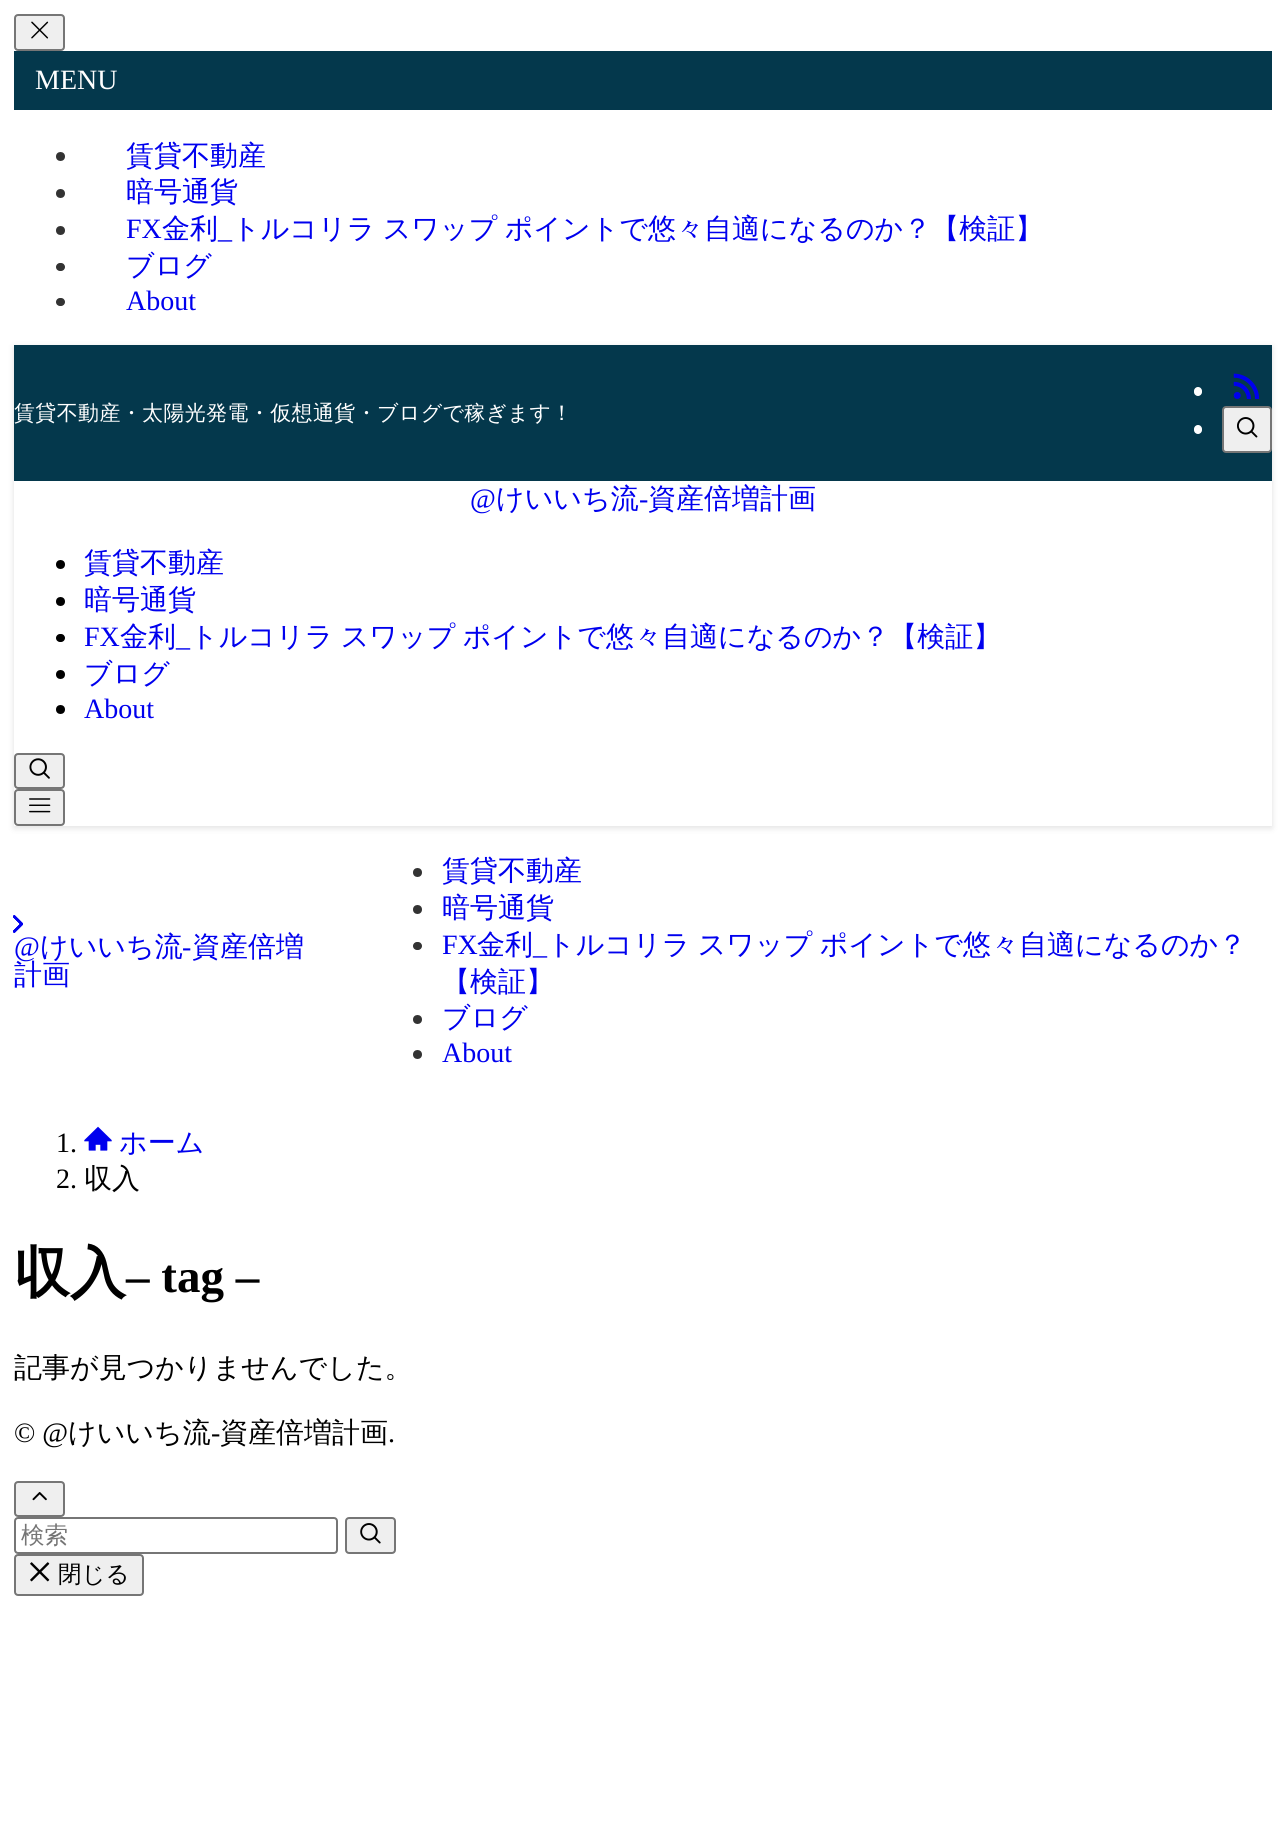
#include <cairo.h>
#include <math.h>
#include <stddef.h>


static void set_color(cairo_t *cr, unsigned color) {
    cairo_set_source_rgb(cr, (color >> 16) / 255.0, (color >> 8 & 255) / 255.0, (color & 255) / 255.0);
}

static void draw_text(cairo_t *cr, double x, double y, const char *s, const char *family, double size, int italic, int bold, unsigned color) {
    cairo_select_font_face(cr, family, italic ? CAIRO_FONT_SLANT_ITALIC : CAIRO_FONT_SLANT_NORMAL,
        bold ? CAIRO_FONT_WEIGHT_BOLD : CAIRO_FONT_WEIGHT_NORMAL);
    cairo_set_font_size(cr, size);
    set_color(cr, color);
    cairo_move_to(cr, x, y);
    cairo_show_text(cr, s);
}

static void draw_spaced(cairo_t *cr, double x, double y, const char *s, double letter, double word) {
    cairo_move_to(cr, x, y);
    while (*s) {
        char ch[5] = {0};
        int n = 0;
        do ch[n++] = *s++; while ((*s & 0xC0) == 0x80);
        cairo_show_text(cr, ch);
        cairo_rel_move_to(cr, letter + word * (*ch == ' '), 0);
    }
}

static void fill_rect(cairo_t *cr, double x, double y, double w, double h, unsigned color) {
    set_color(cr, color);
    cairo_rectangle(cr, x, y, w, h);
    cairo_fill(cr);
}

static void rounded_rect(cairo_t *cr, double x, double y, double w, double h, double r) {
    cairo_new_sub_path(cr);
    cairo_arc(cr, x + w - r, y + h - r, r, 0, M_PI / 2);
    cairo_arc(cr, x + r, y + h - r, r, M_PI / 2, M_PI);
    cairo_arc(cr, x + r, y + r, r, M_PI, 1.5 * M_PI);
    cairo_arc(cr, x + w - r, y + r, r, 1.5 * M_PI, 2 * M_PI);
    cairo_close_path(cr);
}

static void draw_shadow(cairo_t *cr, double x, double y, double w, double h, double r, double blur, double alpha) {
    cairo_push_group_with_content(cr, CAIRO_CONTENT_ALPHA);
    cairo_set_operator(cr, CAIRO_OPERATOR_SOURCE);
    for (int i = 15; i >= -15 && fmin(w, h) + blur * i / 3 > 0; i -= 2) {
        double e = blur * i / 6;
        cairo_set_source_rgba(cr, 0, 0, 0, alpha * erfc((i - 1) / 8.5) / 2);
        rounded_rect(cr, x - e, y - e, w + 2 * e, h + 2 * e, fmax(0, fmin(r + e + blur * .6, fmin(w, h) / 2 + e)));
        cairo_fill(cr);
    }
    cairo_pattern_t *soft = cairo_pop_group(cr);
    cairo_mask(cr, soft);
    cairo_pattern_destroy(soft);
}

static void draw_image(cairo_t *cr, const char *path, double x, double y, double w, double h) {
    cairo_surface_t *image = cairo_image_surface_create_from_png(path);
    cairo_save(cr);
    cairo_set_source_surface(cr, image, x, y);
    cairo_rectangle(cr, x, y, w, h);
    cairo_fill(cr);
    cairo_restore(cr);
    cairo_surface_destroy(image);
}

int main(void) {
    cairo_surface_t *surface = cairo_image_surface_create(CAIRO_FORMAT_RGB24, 1285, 1845);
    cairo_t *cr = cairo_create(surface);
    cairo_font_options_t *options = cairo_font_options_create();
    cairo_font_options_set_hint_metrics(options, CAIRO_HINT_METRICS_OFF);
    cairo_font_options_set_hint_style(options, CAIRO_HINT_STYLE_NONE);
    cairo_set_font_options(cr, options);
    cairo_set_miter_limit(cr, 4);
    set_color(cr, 0xFFFFFF);
    cairo_paint(cr);
    set_color(cr, 0xEFEFEF);
    rounded_rect(cr, 15, 15, 49, 35, 3);
    cairo_fill_preserve(cr);
    set_color(cr, 0x767676);
    cairo_stroke(cr);
    draw_image(cr, "assets/img1.png", 31, 21, 18, 18);
    fill_rect(cr, 14, 51, 1258, 59, 0x04384C);
    draw_text(cr, 35, 89, "MENU", "Liberation Serif", 28, 0, 0, 0xFFFFFF);
    set_color(cr, 0x333333);
    cairo_new_path(cr);
    cairo_arc(cr, 60.5, 156.5, 4.5, 0, 2 * M_PI);
    cairo_fill(cr);
    draw_text(cr, 126, 165, "賃貸不動産", "WenQuanYi Zen Hei Medium", 28, 0, 0, 0x0000EE);
    draw_image(cr, "assets/img2.png", 13, 915, 10, 18);
    set_color(cr, 0x333333);
    cairo_arc(cr, 60.5, 193.5, 4.5, 0, 2 * M_PI);
    cairo_fill(cr);
    draw_text(cr, 126, 201, "暗号通貨", "WenQuanYi Zen Hei Medium", 28, 0, 0, 0x0000EE);
    draw_image(cr, "assets/img3.png", 13, 915, 10, 18);
    set_color(cr, 0x333333);
    cairo_arc(cr, 60.5, 230.5, 4.5, 0, 2 * M_PI);
    cairo_fill(cr);
    draw_text(cr, 126, 238, "FX", "Liberation Serif", 28, 0, 0, 0x0000EE);
    draw_text(cr, 162, 238, "金利", "WenQuanYi Zen Hei Medium", 28, 0, 0, 0x0000EE);
    draw_spaced(cr, 232, 238, "トルコリラ スワップ ポイントで悠々自適になるのか？【検証】", 0, -1);
    draw_text(cr, 218, 238, "_", "Liberation Serif", 28, 0, 0, 0x0000EE);
    draw_image(cr, "assets/img4.png", 13, 915, 10, 18);
    set_color(cr, 0x333333);
    rounded_rect(cr, 56, 263, 9, 8, 4);
    cairo_fill(cr);
    draw_text(cr, 126, 275, "ブログ", "WenQuanYi Zen Hei Medium", 28, 0, 0, 0x0000EE);
    draw_image(cr, "assets/img5.png", 13, 915, 10, 18);
    set_color(cr, 0x333333);
    rounded_rect(cr, 56, 298, 9, 8, 4);
    cairo_fill(cr);
    draw_text(cr, 126, 310, "About", "Liberation Serif", 28, 0, 0, 0x0000EE);
    draw_image(cr, "assets/img6.png", 13, 915, 10, 18);
    cairo_save(cr);
    cairo_set_fill_rule(cr, CAIRO_FILL_RULE_EVEN_ODD);
    cairo_new_path(cr);
    cairo_move_to(cr, 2, 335);
    cairo_line_to(cr, 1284, 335);
    cairo_line_to(cr, 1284, 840);
    cairo_line_to(cr, 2, 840);
    cairo_close_path(cr);
    cairo_move_to(cr, 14, 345);
    cairo_line_to(cr, 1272, 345);
    cairo_line_to(cr, 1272, 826);
    cairo_line_to(cr, 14, 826);
    cairo_close_path(cr);
    cairo_clip(cr);
    set_color(cr, 0x000000);
    draw_shadow(cr, 14, 347, 1258, 481, 0, 3.5, 0.12);
    cairo_restore(cr);
    fill_rect(cr, 14, 345, 1258, 136, 0x04384C);
    cairo_select_font_face(cr, "WenQuanYi Zen Hei Medium", CAIRO_FONT_SLANT_NORMAL, CAIRO_FONT_WEIGHT_NORMAL);
    cairo_set_font_size(cr, 21);
    set_color(cr, 0xFFFFFF);
    draw_spaced(cr, 14, 420, "賃貸不動産・太陽光発電・仮想通貨・ブログで稼ぎます！", 0.35, 0);
    rounded_rect(cr, 1194, 387, 8, 9, 4);
    cairo_fill(cr);
    draw_image(cr, "assets/img7.png", 1233, 373, 27, 26);
    rounded_rect(cr, 1194, 425, 8, 9, 4);
    cairo_fill(cr);
    set_color(cr, 0xEFEFEF);
    rounded_rect(cr, 1223, 407, 48, 45, 3);
    cairo_fill_preserve(cr);
    set_color(cr, 0x767676);
    cairo_stroke(cr);
    draw_image(cr, "assets/img8.png", 1237, 417, 21, 21);
    draw_text(cr, 470, 508, "@", "Liberation Serif", 28, 0, 0, 0x0000EE);
    draw_text(cr, 496, 508, "けいいち流", "WenQuanYi Zen Hei Medium", 28, 0, 0, 0x0000EE);
    draw_text(cr, 639, 508, "-", "Liberation Serif", 28, 0, 0, 0x0000EE);
    draw_text(cr, 648, 508, "資産倍増計画", "WenQuanYi Zen Hei Medium", 28, 0, 0, 0x0000EE);
    set_color(cr, 0x000000);
    cairo_new_path(cr);
    cairo_arc(cr, 60.5, 564.5, 4.5, 0, 2 * M_PI);
    cairo_fill(cr);
    draw_text(cr, 84, 572, "賃貸不動産", "WenQuanYi Zen Hei Medium", 28, 0, 0, 0x0000EE);
    set_color(cr, 0x000000);
    cairo_new_path(cr);
    cairo_arc(cr, 60.5, 601.5, 4.5, 0, 2 * M_PI);
    cairo_fill(cr);
    draw_text(cr, 84, 609, "暗号通貨", "WenQuanYi Zen Hei Medium", 28, 0, 0, 0x0000EE);
    set_color(cr, 0x000000);
    rounded_rect(cr, 56, 634, 9, 8, 4);
    cairo_fill(cr);
    draw_text(cr, 84, 646, "FX", "Liberation Serif", 28, 0, 0, 0x0000EE);
    draw_text(cr, 120, 646, "金利", "WenQuanYi Zen Hei Medium", 28, 0, 0, 0x0000EE);
    draw_spaced(cr, 190, 646, "トルコリラ スワップ ポイントで悠々自適になるのか？【検証】", 0, -1);
    draw_text(cr, 176, 646, "_", "Liberation Serif", 28, 0, 0, 0x0000EE);
    set_color(cr, 0x000000);
    cairo_new_path(cr);
    cairo_arc(cr, 60.5, 674.5, 4.5, 0, 2 * M_PI);
    cairo_fill(cr);
    draw_text(cr, 84, 683, "ブログ", "WenQuanYi Zen Hei Medium", 28, 0, 0, 0x0000EE);
    set_color(cr, 0x000000);
    cairo_new_path(cr);
    cairo_arc(cr, 60.5, 709.5, 4.5, 0, 2 * M_PI);
    cairo_fill(cr);
    draw_text(cr, 84, 718, "About", "Liberation Serif", 28, 0, 0, 0x0000EE);
    set_color(cr, 0xEFEFEF);
    rounded_rect(cr, 15, 754, 49, 34, 3);
    cairo_fill_preserve(cr);
    set_color(cr, 0x767676);
    cairo_stroke(cr);
    draw_image(cr, "assets/img9.png", 29, 758, 21, 21);
    set_color(cr, 0xEFEFEF);
    rounded_rect(cr, 15, 790, 49, 35, 3);
    cairo_fill_preserve(cr);
    set_color(cr, 0x767676);
    cairo_stroke(cr);
    draw_image(cr, "assets/img10.png", 29, 798, 22, 15);
    draw_text(cr, 14, 956, "@", "Liberation Serif", 28, 0, 0, 0x0000EE);
    draw_text(cr, 40, 956, "けいいち流", "WenQuanYi Zen Hei Medium", 28, 0, 0, 0x0000EE);
    draw_text(cr, 182, 956, "-", "Liberation Serif", 28, 0, 0, 0x0000EE);
    draw_text(cr, 192, 956, "資産倍増", "WenQuanYi Zen Hei Medium", 28, 0, 0, 0x0000EE);
    draw_text(cr, 14, 984, "計画", "WenQuanYi Zen Hei Medium", 28, 0, 0, 0x0000EE);
    set_color(cr, 0x333333);
    cairo_new_path(cr);
    cairo_arc(cr, 417.5, 872.5, 4.5, 0, 2 * M_PI);
    cairo_fill(cr);
    draw_text(cr, 442, 880, "賃貸不動産", "WenQuanYi Zen Hei Medium", 28, 0, 0, 0x0000EE);
    set_color(cr, 0x333333);
    cairo_new_path(cr);
    cairo_arc(cr, 417.5, 909.5, 4.5, 0, 2 * M_PI);
    cairo_fill(cr);
    draw_text(cr, 442, 917, "暗号通貨", "WenQuanYi Zen Hei Medium", 28, 0, 0, 0x0000EE);
    set_color(cr, 0x333333);
    rounded_rect(cr, 413, 942, 9, 8, 4);
    cairo_fill(cr);
    draw_text(cr, 442, 954, "FX", "Liberation Serif", 28, 0, 0, 0x0000EE);
    draw_text(cr, 477, 954, "金利", "WenQuanYi Zen Hei Medium", 28, 0, 0, 0x0000EE);
    draw_spaced(cr, 547, 954, "トルコリラ スワップ ポイントで悠々自適になるのか？", 0, -1);
    draw_text(cr, 533, 954, "_", "Liberation Serif", 28, 0, 0, 0x0000EE);
    draw_text(cr, 442, 991, "【検証】", "WenQuanYi Zen Hei Medium", 28, 0, 0, 0x0000EE);
    set_color(cr, 0x333333);
    cairo_new_path(cr);
    cairo_arc(cr, 417.5, 1019.5, 4.5, 0, 2 * M_PI);
    cairo_fill(cr);
    draw_text(cr, 442, 1027, "ブログ", "WenQuanYi Zen Hei Medium", 28, 0, 0, 0x0000EE);
    set_color(cr, 0x333333);
    cairo_new_path(cr);
    cairo_arc(cr, 417.5, 1054.5, 4.5, 0, 2 * M_PI);
    cairo_fill(cr);
    draw_text(cr, 442, 1062, "About", "Liberation Serif", 28, 0, 0, 0x0000EE);
    draw_text(cr, 56, 1152, "1.", "Liberation Serif", 28, 0, 0, 0x000000);
    draw_image(cr, "assets/img11.png", 84, 1126, 28, 25);
    draw_text(cr, 119, 1152, "ホーム", "WenQuanYi Zen Hei Medium", 28, 0, 0, 0x0000EE);
    draw_text(cr, 56, 1188, "2.", "Liberation Serif", 28, 0, 0, 0x000000);
    draw_text(cr, 84, 1188, "収入", "WenQuanYi Zen Hei Medium", 28, 0, 0, 0x000000);
    draw_text(cr, 14, 1292, "収入", "WenQuanYi Zen Hei", 56, 0, 1, 0x000000);
    draw_text(cr, 126, 1292, "– tag –", "Liberation Serif", 47, 0, 1, 0x000000);
    draw_text(cr, 14, 1377, "記事が見つかりませんでした。", "WenQuanYi Zen Hei Medium", 28, 0, 0, 0x000000);
    draw_text(cr, 14, 1442, "© @", "Liberation Serif", 28, 0, 0, 0x000000);
    draw_text(cr, 68, 1442, "けいいち流", "WenQuanYi Zen Hei Medium", 28, 0, 0, 0x000000);
    draw_text(cr, 211, 1442, "-", "Liberation Serif", 28, 0, 0, 0x000000);
    draw_text(cr, 220, 1442, "資産倍増計画", "WenQuanYi Zen Hei Medium", 28, 0, 0, 0x000000);
    draw_text(cr, 388, 1442, ".", "Liberation Serif", 28, 0, 0, 0x000000);
    set_color(cr, 0xEFEFEF);
    rounded_rect(cr, 15, 1482, 49, 34, 3);
    cairo_fill_preserve(cr);
    set_color(cr, 0x767676);
    cairo_stroke(cr);
    draw_image(cr, "assets/img12.png", 32, 1492, 15, 9);
    rounded_rect(cr, 15, 1518, 322, 35, 3);
    cairo_stroke(cr);
    draw_text(cr, 21, 1543, "検索", "WenQuanYi Zen Hei Medium", 23.5, 0, 0, 0x757575);
    set_color(cr, 0xEFEFEF);
    rounded_rect(cr, 346, 1518, 49, 35, 3);
    cairo_fill_preserve(cr);
    set_color(cr, 0x767676);
    cairo_stroke(cr);
    draw_image(cr, "assets/img13.png", 360, 1523, 21, 21);
    set_color(cr, 0xEFEFEF);
    rounded_rect(cr, 15, 1555, 128, 40, 3);
    cairo_fill_preserve(cr);
    set_color(cr, 0x767676);
    cairo_stroke(cr);
    draw_image(cr, "assets/img14.png", 30, 1562, 20, 20);
    draw_text(cr, 58, 1582, "閉じる", "WenQuanYi Zen Hei Medium", 23.5, 0, 0, 0x000000);
    cairo_surface_write_to_png(surface, "output.png");
    cairo_font_options_destroy(options);
    cairo_destroy(cr);
    cairo_surface_destroy(surface);
    return 0;
}
